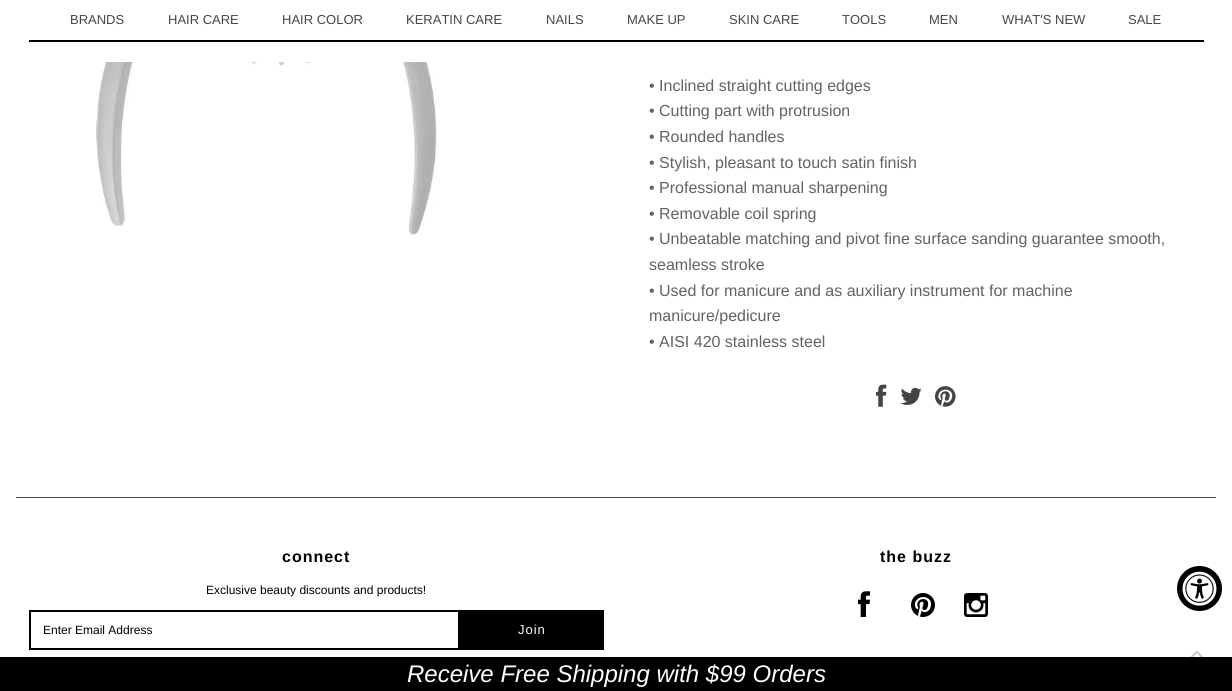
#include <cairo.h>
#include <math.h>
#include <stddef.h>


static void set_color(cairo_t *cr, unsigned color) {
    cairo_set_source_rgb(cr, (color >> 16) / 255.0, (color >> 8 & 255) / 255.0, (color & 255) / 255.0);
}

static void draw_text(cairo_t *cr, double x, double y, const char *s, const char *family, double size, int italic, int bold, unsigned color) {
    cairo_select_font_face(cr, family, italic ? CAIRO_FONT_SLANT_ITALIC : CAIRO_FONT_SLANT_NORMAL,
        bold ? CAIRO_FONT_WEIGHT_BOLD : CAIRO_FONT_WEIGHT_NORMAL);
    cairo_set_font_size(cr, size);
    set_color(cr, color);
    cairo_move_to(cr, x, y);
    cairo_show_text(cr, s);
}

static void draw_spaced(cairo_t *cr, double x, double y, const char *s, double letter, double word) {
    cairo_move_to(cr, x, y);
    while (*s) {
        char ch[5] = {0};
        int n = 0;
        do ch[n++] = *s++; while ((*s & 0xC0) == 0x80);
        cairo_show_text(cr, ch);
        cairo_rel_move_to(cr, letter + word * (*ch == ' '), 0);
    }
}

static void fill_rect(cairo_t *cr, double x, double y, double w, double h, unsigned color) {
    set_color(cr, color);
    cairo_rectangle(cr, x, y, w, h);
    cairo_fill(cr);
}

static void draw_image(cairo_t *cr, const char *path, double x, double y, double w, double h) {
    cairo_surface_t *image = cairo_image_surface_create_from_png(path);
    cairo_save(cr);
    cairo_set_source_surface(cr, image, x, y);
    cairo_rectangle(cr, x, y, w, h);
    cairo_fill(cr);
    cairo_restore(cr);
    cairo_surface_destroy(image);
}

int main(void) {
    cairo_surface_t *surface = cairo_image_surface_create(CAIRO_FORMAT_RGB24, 1232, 691);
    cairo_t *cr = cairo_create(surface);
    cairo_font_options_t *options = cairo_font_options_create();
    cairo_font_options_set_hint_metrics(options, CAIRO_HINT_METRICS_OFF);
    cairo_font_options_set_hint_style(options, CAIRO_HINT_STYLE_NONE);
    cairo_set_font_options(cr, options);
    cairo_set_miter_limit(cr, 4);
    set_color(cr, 0xFFFFFF);
    cairo_paint(cr);
    fill_rect(cr, 29, 40, 1175, 2, 0x000000);
    draw_text(cr, 70, 24, "BRANDS", "Liberation Sans", 13, 0, 0, 0x454545);
    draw_text(cr, 168, 24, "HAIR CARE", "Liberation Sans", 13, 0, 0, 0x454545);
    draw_text(cr, 282, 24, "HAIR COLOR", "Liberation Sans", 13, 0, 0, 0x454545);
    draw_text(cr, 406, 24, "KERATIN CARE", "Liberation Sans", 13, 0, 0, 0x454545);
    draw_text(cr, 546, 24, "NAILS", "Liberation Sans", 13, 0, 0, 0x454545);
    draw_text(cr, 627, 24, "MAKE UP", "Liberation Sans", 13, 0, 0, 0x454545);
    draw_text(cr, 729, 24, "SKIN CARE", "Liberation Sans", 13, 0, 0, 0x454545);
    draw_text(cr, 842, 24, "TOOLS", "Liberation Sans", 13, 0, 0, 0x454545);
    draw_text(cr, 929, 24, "MEN", "Liberation Sans", 13, 0, 0, 0x454545);
    draw_text(cr, 1002, 24, "WHAT'S NEW", "Liberation Sans", 13, 0, 0, 0x454545);
    draw_text(cr, 1128, 24, "SALE", "Liberation Sans", 13, 0, 0, 0x454545);
    draw_image(cr, "assets/img1.png", 96, 62, 341, 173);
    draw_text(cr, 649, 91, "• Inclined straight cutting edges", "Liberation Sans", 16, 0, 0, 0x626262);
    draw_text(cr, 649, 116, "• Cutting part with protrusion", "Liberation Sans", 16, 0, 0, 0x626262);
    draw_text(cr, 649, 142, "• Rounded handles", "Liberation Sans", 16, 0, 0, 0x626262);
    draw_text(cr, 649, 168, "• Stylish, pleasant to touch satin finish", "Liberation Sans", 16, 0, 0, 0x626262);
    draw_text(cr, 649, 193, "• Professional manual sharpening", "Liberation Sans", 16, 0, 0, 0x626262);
    draw_text(cr, 649, 219, "• Removable coil spring", "Liberation Sans", 16, 0, 0, 0x626262);
    draw_text(cr, 649, 244, "• Unbeatable matching and pivot fine surface sanding guarantee smooth,", "Liberation Sans", 16, 0, 0, 0x626262);
    draw_text(cr, 649, 270, "seamless stroke", "Liberation Sans", 16, 0, 0, 0x626262);
    draw_text(cr, 649, 296, "• Used for manicure and as auxiliary instrument for machine", "Liberation Sans", 16, 0, 0, 0x626262);
    draw_text(cr, 649, 321, "manicure/pedicure", "Liberation Sans", 16, 0, 0, 0x626262);
    draw_text(cr, 649, 347, "• AISI 420 stainless steel", "Liberation Sans", 16, 0, 0, 0x626262);
    draw_image(cr, "assets/img2.png", 876, 384, 11, 23);
    draw_image(cr, "assets/img3.png", 900, 387, 22, 18);
    draw_image(cr, "assets/img4.png", 935, 386, 21, 21);
    fill_rect(cr, 0, 657, 1232, 34, 0x000000);
    draw_text(cr, 407, 682, "Receive Free Shipping with $99 Orders", "Liberation Sans", 24, 1, 0, 0xFFFFFF);
    fill_rect(cr, 16, 497, 1200, 1, 0x444444);
    cairo_select_font_face(cr, "Liberation Sans", CAIRO_FONT_SLANT_NORMAL, CAIRO_FONT_WEIGHT_BOLD);
    cairo_set_font_size(cr, 16);
    set_color(cr, 0x000000);
    draw_spaced(cr, 282, 562, "connect", 1, 0);
    draw_text(cr, 206, 594, "Exclusive beauty discounts and products!", "Liberation Sans", 12, 0, 0, 0x000000);
    cairo_rectangle(cr, 30, 611, 429, 38);
    cairo_stroke(cr);
    draw_text(cr, 43, 634, "Enter Email Address", "Liberation Sans", 12, 0, 0, 0x000000);
    fill_rect(cr, 460, 610, 144, 40, 0x000000);
    cairo_set_font_size(cr, 13);
    set_color(cr, 0xFFFFFF);
    draw_spaced(cr, 518, 634, "Join", 1, 0);
    cairo_select_font_face(cr, "Liberation Sans", CAIRO_FONT_SLANT_NORMAL, CAIRO_FONT_WEIGHT_BOLD);
    cairo_set_font_size(cr, 16);
    set_color(cr, 0x000000);
    draw_spaced(cr, 880, 562, "the buzz", 1, 0);
    draw_image(cr, "assets/img5.png", 858, 591, 12, 26);
    draw_image(cr, "assets/img6.png", 911, 593, 24, 24);
    draw_image(cr, "assets/img7.png", 964, 593, 24, 24);
    cairo_arc(cr, 1199.5, 588.5, 22.5, 0, 2 * M_PI);
    cairo_fill(cr);
    draw_image(cr, "assets/img8.png", 1182, 571, 35, 35);
    draw_image(cr, "assets/img9.png", 1190, 650, 13, 7);
    cairo_surface_write_to_png(surface, "output.png");
    cairo_font_options_destroy(options);
    cairo_destroy(cr);
    cairo_surface_destroy(surface);
    return 0;
}
